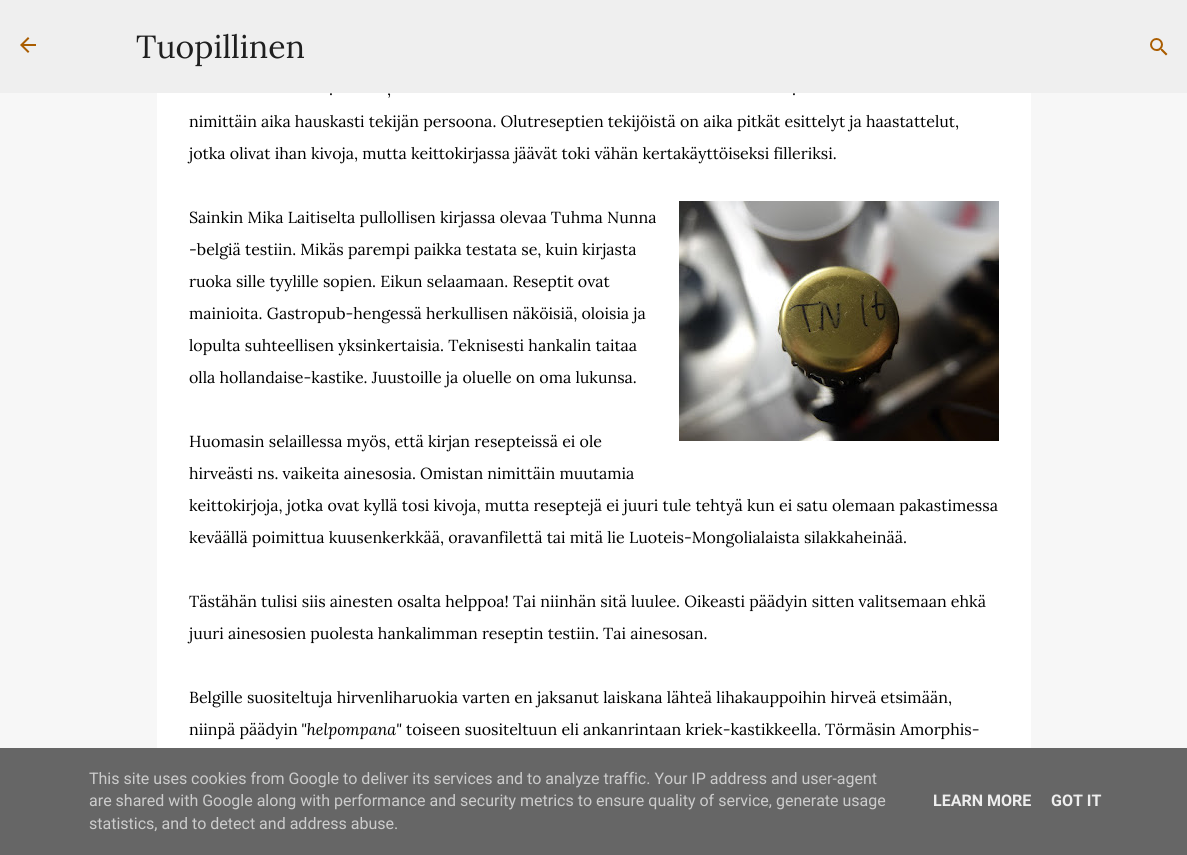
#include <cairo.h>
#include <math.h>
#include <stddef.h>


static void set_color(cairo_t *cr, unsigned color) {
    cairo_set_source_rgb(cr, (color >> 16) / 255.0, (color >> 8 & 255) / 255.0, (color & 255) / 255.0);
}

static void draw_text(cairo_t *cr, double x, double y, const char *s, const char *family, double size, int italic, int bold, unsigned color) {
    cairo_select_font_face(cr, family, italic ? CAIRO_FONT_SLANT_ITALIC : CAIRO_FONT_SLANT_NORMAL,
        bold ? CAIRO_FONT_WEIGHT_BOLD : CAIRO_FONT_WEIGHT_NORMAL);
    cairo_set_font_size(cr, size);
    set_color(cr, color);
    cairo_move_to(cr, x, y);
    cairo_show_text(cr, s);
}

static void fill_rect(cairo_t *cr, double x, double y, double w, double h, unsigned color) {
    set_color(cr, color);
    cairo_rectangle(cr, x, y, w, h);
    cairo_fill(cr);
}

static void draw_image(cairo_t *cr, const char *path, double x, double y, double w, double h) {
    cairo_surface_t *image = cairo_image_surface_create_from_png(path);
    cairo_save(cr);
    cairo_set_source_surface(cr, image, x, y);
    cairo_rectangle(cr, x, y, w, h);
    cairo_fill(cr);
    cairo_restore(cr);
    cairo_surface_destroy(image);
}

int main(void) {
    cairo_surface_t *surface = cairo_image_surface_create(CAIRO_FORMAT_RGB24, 1187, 855);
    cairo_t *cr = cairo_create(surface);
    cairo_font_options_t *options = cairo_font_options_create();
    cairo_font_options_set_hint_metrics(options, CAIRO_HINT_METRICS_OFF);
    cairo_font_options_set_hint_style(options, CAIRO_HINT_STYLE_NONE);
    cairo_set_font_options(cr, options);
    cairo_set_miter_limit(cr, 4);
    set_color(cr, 0xF7F7F7);
    cairo_paint(cr);
    fill_rect(cr, 0, 0, 1187, 93, 0xEFEFEF);
    draw_image(cr, "assets/img1.png", 20, 37, 16, 16);
    draw_text(cr, 136, 58, "Tuopillinen", "Lora", 32, 0, 0, 0x1F1F1F);
    draw_image(cr, "assets/img2.png", 1150, 38, 18, 18);
    fill_rect(cr, 157, 93, 874, 655, 0xFFFFFF);
    draw_text(cr, 329, 95, ".", "Lora", 16, 0, 0, 0x000000);
    draw_text(cr, 387, 95, ",", "Lora", 16, 0, 0, 0x000000);
    draw_text(cr, 792, 95, ".", "Lora", 16, 0, 0, 0x000000);
    draw_text(cr, 189, 127, "nimittäin aika hauskasti tekijän persoona. Olutreseptien tekijöistä on aika pitkät esittelyt ja haastattelut,", "Lora", 16, 0, 0, 0x000000);
    draw_text(cr, 189, 159, "jotka olivat ihan kivoja, mutta keittokirjassa jäävät toki vähän kertakäyttöiseksi filleriksi.", "Lora", 16, 0, 0, 0x000000);
    draw_text(cr, 189, 223, "Sainkin Mika Laitiselta pullollisen kirjassa olevaa Tuhma Nunna", "Lora", 16, 0, 0, 0x000000);
    draw_image(cr, "assets/img3.png", 679, 201, 320, 240);
    draw_text(cr, 189, 255, "-belgiä testiin. Mikäs parempi paikka testata se, kuin kirjasta", "Lora", 16, 0, 0, 0x000000);
    draw_text(cr, 189, 287, "ruoka sille tyylille sopien. Eikun selaamaan. Reseptit ovat", "Lora", 16, 0, 0, 0x000000);
    draw_text(cr, 189, 319, "mainioita. Gastropub-hengessä herkullisen näköisiä, oloisia ja", "Lora", 16, 0, 0, 0x000000);
    draw_text(cr, 189, 351, "lopulta suhteellisen yksinkertaisia. Teknisesti hankalin taitaa", "Lora", 16, 0, 0, 0x000000);
    draw_text(cr, 189, 383, "olla hollandaise-kastike. Juustoille ja oluelle on oma lukunsa.", "Lora", 16, 0, 0, 0x000000);
    draw_text(cr, 189, 447, "Huomasin selaillessa myös, että kirjan resepteissä ei ole", "Lora", 16, 0, 0, 0x000000);
    draw_text(cr, 189, 479, "hirveästi ns. vaikeita ainesosia. Omistan nimittäin muutamia", "Lora", 16, 0, 0, 0x000000);
    draw_text(cr, 189, 511, "keittokirjoja, jotka ovat kyllä tosi kivoja, mutta reseptejä ei juuri tule tehtyä kun ei satu olemaan pakastimessa", "Lora", 16, 0, 0, 0x000000);
    draw_text(cr, 189, 543, "keväällä poimittua kuusenkerkkää, oravanfilettä tai mitä lie Luoteis-Mongolialaista silakkaheinää.", "Lora", 16, 0, 0, 0x000000);
    draw_text(cr, 189, 607, "Tästähän tulisi siis ainesten osalta helppoa! Tai niinhän sitä luulee. Oikeasti päädyin sitten valitsemaan ehkä", "Lora", 16, 0, 0, 0x000000);
    draw_text(cr, 189, 639, "juuri ainesosien puolesta hankalimman reseptin testiin. Tai ainesosan.", "Lora", 16, 0, 0, 0x000000);
    draw_text(cr, 189, 703, "Belgille suositeltuja hirvenliharuokia varten en jaksanut laiskana lähteä lihakauppoihin hirveä etsimään,", "Lora", 16, 0, 0, 0x000000);
    draw_text(cr, 189, 735, "niinpä päädyin", "Lora", 16, 0, 0, 0x000000);
    draw_text(cr, 301, 735, "\"helpompana\"", "Lora", 16, 1, 0, 0x000000);
    draw_text(cr, 406, 735, "toiseen suositeltuun eli ankanrintaan kriek-kastikkeella. Törmäsin Amorphis-", "Lora", 16, 0, 0, 0x000000);
    fill_rect(cr, 0, 748, 1187, 107, 0x666666);
    draw_text(cr, 89, 784, "This site uses cookies from Google to deliver its services and to analyze traffic. Your IP address and user-agent", "Roboto", 16, 0, 0, 0xCCCCCC);
    draw_text(cr, 89, 806, "are shared with Google along with performance and security metrics to ensure quality of service, generate usage", "Roboto", 16, 0, 0, 0xCCCCCC);
    draw_text(cr, 89, 829, "statistics, and to detect and address abuse.", "Roboto", 16, 0, 0, 0xCCCCCC);
    draw_text(cr, 933, 806, "LEARN MORE", "Roboto", 16, 0, 1, 0xEEEEEE);
    draw_text(cr, 1051, 806, "GOT IT", "Roboto", 16, 0, 1, 0xEEEEEE);
    cairo_surface_write_to_png(surface, "output.png");
    cairo_font_options_destroy(options);
    cairo_destroy(cr);
    cairo_surface_destroy(surface);
    return 0;
}
